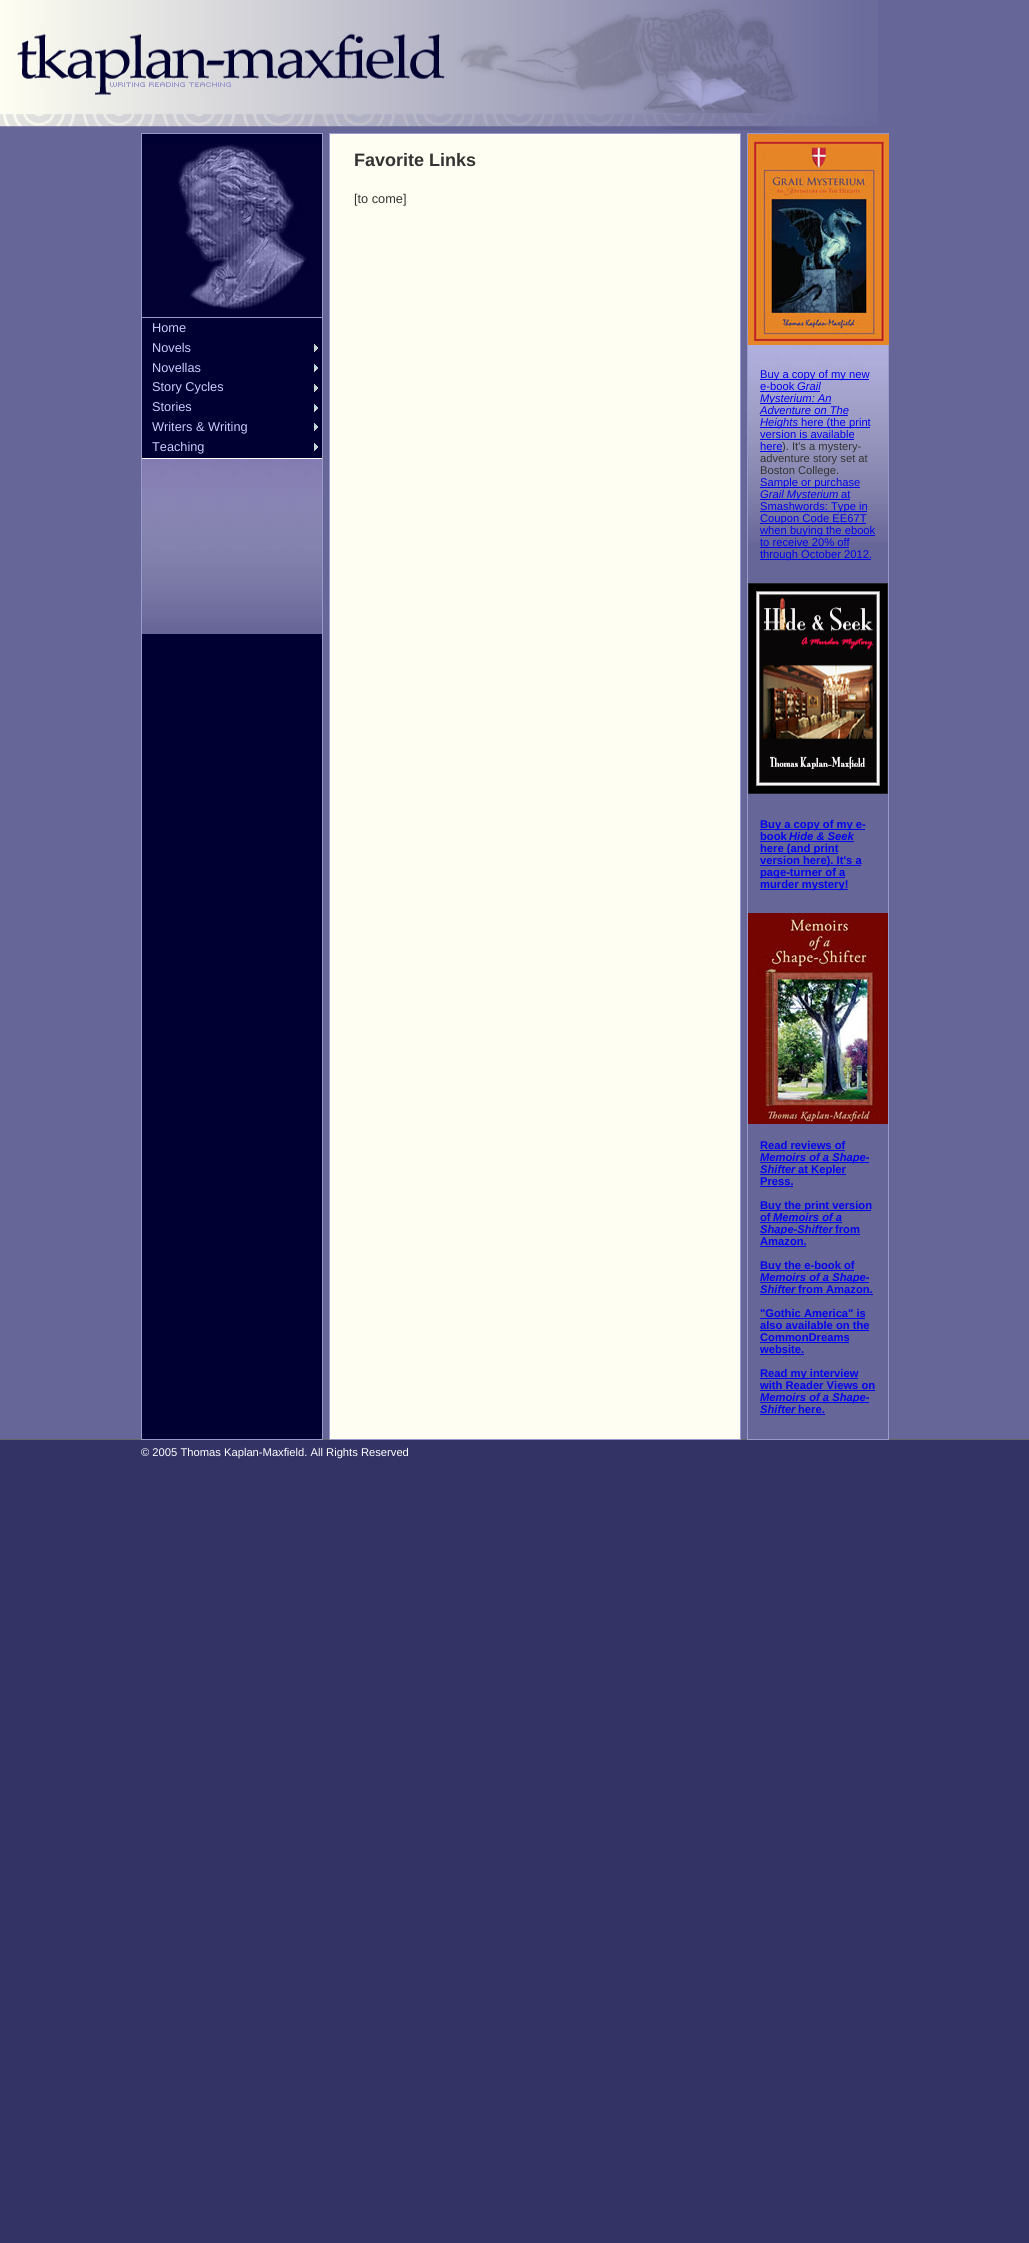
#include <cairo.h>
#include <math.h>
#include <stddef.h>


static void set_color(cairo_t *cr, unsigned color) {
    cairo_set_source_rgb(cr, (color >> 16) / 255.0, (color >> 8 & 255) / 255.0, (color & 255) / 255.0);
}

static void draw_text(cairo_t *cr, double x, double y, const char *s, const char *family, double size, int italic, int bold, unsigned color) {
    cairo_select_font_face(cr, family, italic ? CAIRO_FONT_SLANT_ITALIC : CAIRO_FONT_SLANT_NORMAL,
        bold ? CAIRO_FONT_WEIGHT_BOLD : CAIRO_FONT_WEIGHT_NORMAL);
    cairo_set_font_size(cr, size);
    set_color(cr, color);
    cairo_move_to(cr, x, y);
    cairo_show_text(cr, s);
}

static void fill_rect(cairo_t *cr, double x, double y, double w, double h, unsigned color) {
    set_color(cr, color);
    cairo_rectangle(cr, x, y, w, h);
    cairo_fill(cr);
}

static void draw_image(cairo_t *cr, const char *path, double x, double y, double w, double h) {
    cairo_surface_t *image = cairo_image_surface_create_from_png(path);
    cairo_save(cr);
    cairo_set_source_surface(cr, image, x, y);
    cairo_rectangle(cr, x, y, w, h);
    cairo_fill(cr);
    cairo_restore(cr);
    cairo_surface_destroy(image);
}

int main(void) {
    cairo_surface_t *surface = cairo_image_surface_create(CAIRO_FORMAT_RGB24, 1029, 2243);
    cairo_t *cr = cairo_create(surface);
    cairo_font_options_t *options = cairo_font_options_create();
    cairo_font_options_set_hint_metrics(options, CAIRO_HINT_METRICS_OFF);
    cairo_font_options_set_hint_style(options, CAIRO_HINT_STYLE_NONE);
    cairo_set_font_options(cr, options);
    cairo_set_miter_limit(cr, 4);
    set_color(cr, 0x333366);
    cairo_paint(cr);
    fill_rect(cr, 0, 0, 1029, 1439, 0x666699);
    draw_image(cr, "assets/img1.png", 0, 0, 878, 130);
    fill_rect(cr, 142, 134, 180, 1305, 0x000033);
    draw_image(cr, "assets/img2.png", 142, 459, 180, 175);
    fill_rect(cr, 0, 1439, 1029, 1, 0x666666);
    cairo_rectangle(cr, 141.5, 133.5, 181, 1306);
    set_color(cr, 0x9999CC);
    cairo_set_line_width(cr, 1);
    cairo_stroke(cr);
    draw_image(cr, "assets/img3.png", 142, 142, 180, 176);
    fill_rect(cr, 142, 458, 180, 1, 0xFFFFFF);
    draw_text(cr, 152, 332, "Home", "Liberation Sans", 12.75, 0, 0, 0xCCCCFF);
    draw_image(cr, "assets/img4.png", 314, 344, 4, 8);
    draw_text(cr, 152, 352, "Novels", "Liberation Sans", 12.75, 0, 0, 0xCCCCFF);
    draw_image(cr, "assets/img4.png", 314, 364, 4, 8);
    draw_text(cr, 152, 372, "Novellas", "Liberation Sans", 12.75, 0, 0, 0xCCCCFF);
    draw_image(cr, "assets/img4.png", 314, 384, 4, 8);
    draw_text(cr, 152, 391, "Story Cycles", "Liberation Sans", 12.75, 0, 0, 0xCCCCFF);
    draw_image(cr, "assets/img4.png", 314, 404, 4, 8);
    draw_text(cr, 152, 411, "Stories", "Liberation Sans", 12.75, 0, 0, 0xCCCCFF);
    draw_image(cr, "assets/img4.png", 314, 423, 4, 8);
    draw_text(cr, 152, 431, "Writers & Writing", "Liberation Sans", 12.75, 0, 0, 0xCCCCFF);
    draw_image(cr, "assets/img4.png", 314, 443, 4, 8);
    draw_text(cr, 152, 451, "Teaching", "Liberation Sans", 12.75, 0, 0, 0xCCCCFF);
    set_color(cr, 0xFEFEF2);
    cairo_rectangle(cr, 329.5, 133.5, 411, 1306);
    cairo_fill_preserve(cr);
    set_color(cr, 0x9999CC);
    cairo_stroke(cr);
    draw_text(cr, 354, 166, "Favorite Links", "Liberation Sans", 18, 0, 1, 0x333333);
    draw_text(cr, 354, 203, "[to come]", "Liberation Sans", 12.75, 0, 0, 0x333333);
    draw_image(cr, "assets/img5.png", 748, 345, 140, 197);
    cairo_rectangle(cr, 747.5, 133.5, 141, 1306);
    set_color(cr, 0x9999CC);
    cairo_stroke(cr);
    draw_image(cr, "assets/img6.png", 748, 134, 141, 211);
    fill_rect(cr, 760, 379, 109, 1, 0x0000EE);
    draw_text(cr, 760, 378, "Buy a copy of my new", "Liberation Sans", 11.2, 0, 0, 0x0000EE);
    draw_text(cr, 760, 390, "e-book", "Liberation Sans", 11.2, 0, 0, 0x0000EE);
    fill_rect(cr, 760, 391, 60, 1, 0x0000EE);
    draw_text(cr, 797, 390, "Grail", "Liberation Sans", 11.2, 1, 0, 0x0000EE);
    fill_rect(cr, 760, 403, 71, 1, 0x0000EE);
    draw_text(cr, 760, 402, "Mysterium: An", "Liberation Sans", 11.2, 1, 0, 0x0000EE);
    draw_text(cr, 760, 414, "Adventure on The", "Liberation Sans", 11.2, 1, 0, 0x0000EE);
    fill_rect(cr, 760, 415, 88, 1, 0x0000EE);
    fill_rect(cr, 760, 427, 37, 1, 0x0000EE);
    draw_text(cr, 760, 426, "Heights", "Liberation Sans", 11.2, 1, 0, 0x0000EE);
    fill_rect(cr, 797, 427, 73, 1, 0x0000EE);
    draw_text(cr, 801, 426, "here (the print", "Liberation Sans", 11.2, 0, 0, 0x0000EE);
    draw_text(cr, 760, 438, "version is available", "Liberation Sans", 11.2, 0, 0, 0x0000EE);
    fill_rect(cr, 760, 439, 94, 1, 0x0000EE);
    draw_text(cr, 760, 450, "here", "Liberation Sans", 11.2, 0, 0, 0x0000EE);
    fill_rect(cr, 760, 451, 22, 1, 0x0000EE);
    draw_text(cr, 782, 450, "). It's a mystery-", "Liberation Sans", 11.2, 0, 0, 0x333333);
    draw_text(cr, 760, 462, "adventure story set at", "Liberation Sans", 11.2, 0, 0, 0x333333);
    draw_text(cr, 760, 474, "Boston College.", "Liberation Sans", 11.2, 0, 0, 0x333333);
    fill_rect(cr, 760, 487, 100, 1, 0x0000EE);
    draw_text(cr, 760, 486, "Sample or purchase", "Liberation Sans", 11.2, 0, 0, 0x0000EE);
    fill_rect(cr, 760, 499, 90, 1, 0x0000EE);
    draw_text(cr, 760, 498, "Grail Mysterium", "Liberation Sans", 11.2, 1, 0, 0x0000EE);
    draw_text(cr, 841, 498, "at", "Liberation Sans", 11.2, 0, 0, 0x0000EE);
    fill_rect(cr, 760, 511, 107, 1, 0x0000EE);
    draw_text(cr, 760, 510, "Smashwords: Type in", "Liberation Sans", 11.2, 0, 0, 0x0000EE);
    fill_rect(cr, 760, 523, 106, 1, 0x0000EE);
    draw_text(cr, 760, 522, "Coupon Code EE67T", "Liberation Sans", 11.2, 0, 0, 0x0000EE);
    fill_rect(cr, 760, 535, 115, 1, 0x0000EE);
    draw_text(cr, 760, 534, "when buying the ebook", "Liberation Sans", 11.2, 0, 0, 0x0000EE);
    draw_text(cr, 760, 546, "to receive 20% off", "Liberation Sans", 11.2, 0, 0, 0x0000EE);
    fill_rect(cr, 760, 547, 89, 1, 0x0000EE);
    fill_rect(cr, 760, 559, 111, 1, 0x0000EE);
    draw_text(cr, 760, 558, "through October 2012.", "Liberation Sans", 11.2, 0, 0, 0x0000EE);
    draw_image(cr, "assets/img7.png", 748, 583, 140, 211);
    fill_rect(cr, 760, 829, 105, 1, 0x0000EE);
    draw_text(cr, 760, 828, "Buy a copy of my e-", "Liberation Sans", 11.2, 0, 1, 0x0000EE);
    draw_text(cr, 760, 840, "book", "Liberation Sans", 11.2, 0, 1, 0x0000EE);
    fill_rect(cr, 760, 841, 94, 1, 0x0000EE);
    draw_text(cr, 789, 840, "Hide & Seek", "Liberation Sans", 11.2, 1, 1, 0x0000EE);
    fill_rect(cr, 760, 853, 78, 1, 0x0000EE);
    draw_text(cr, 760, 852, "here (and print", "Liberation Sans", 11.2, 0, 1, 0x0000EE);
    fill_rect(cr, 760, 865, 101, 1, 0x0000EE);
    draw_text(cr, 760, 864, "version here). It's a", "Liberation Sans", 11.2, 0, 1, 0x0000EE);
    fill_rect(cr, 760, 877, 85, 1, 0x0000EE);
    draw_text(cr, 760, 876, "page-turner of a", "Liberation Sans", 11.2, 0, 1, 0x0000EE);
    fill_rect(cr, 760, 889, 88, 1, 0x0000EE);
    draw_text(cr, 760, 888, "murder mystery!", "Liberation Sans", 11.2, 0, 1, 0x0000EE);
    draw_image(cr, "assets/img8.png", 748, 913, 140, 211);
    draw_text(cr, 760, 1149, "Read reviews of", "Liberation Sans", 11.2, 0, 1, 0x0000EE);
    fill_rect(cr, 760, 1150, 85, 1, 0x0000EE);
    fill_rect(cr, 760, 1162, 109, 1, 0x0000EE);
    draw_text(cr, 760, 1161, "Memoirs of a Shape-", "Liberation Sans", 11.2, 1, 1, 0x0000EE);
    draw_text(cr, 760, 1173, "Shifter", "Liberation Sans", 11.2, 1, 1, 0x0000EE);
    fill_rect(cr, 760, 1174, 86, 1, 0x0000EE);
    draw_text(cr, 798, 1173, "at Kepler", "Liberation Sans", 11.2, 0, 1, 0x0000EE);
    draw_text(cr, 760, 1185, "Press.", "Liberation Sans", 11.2, 0, 1, 0x0000EE);
    fill_rect(cr, 760, 1186, 33, 1, 0x0000EE);
    fill_rect(cr, 760, 1210, 111, 1, 0x0000EE);
    draw_text(cr, 760, 1209, "Buy the print version", "Liberation Sans", 11.2, 0, 1, 0x0000EE);
    draw_text(cr, 760, 1221, "of", "Liberation Sans", 11.2, 0, 1, 0x0000EE);
    fill_rect(cr, 760, 1222, 82, 1, 0x0000EE);
    draw_text(cr, 773, 1221, "Memoirs of a", "Liberation Sans", 11.2, 1, 1, 0x0000EE);
    fill_rect(cr, 760, 1234, 72, 1, 0x0000EE);
    draw_text(cr, 760, 1233, "Shape-Shifter", "Liberation Sans", 11.2, 1, 1, 0x0000EE);
    fill_rect(cr, 832, 1234, 28, 1, 0x0000EE);
    draw_text(cr, 835, 1233, "from", "Liberation Sans", 11.2, 0, 1, 0x0000EE);
    draw_text(cr, 760, 1245, "Amazon.", "Liberation Sans", 11.2, 0, 1, 0x0000EE);
    fill_rect(cr, 760, 1246, 46, 1, 0x0000EE);
    fill_rect(cr, 760, 1270, 94, 1, 0x0000EE);
    draw_text(cr, 760, 1269, "Buy the e-book of", "Liberation Sans", 11.2, 0, 1, 0x0000EE);
    fill_rect(cr, 760, 1282, 109, 1, 0x0000EE);
    draw_text(cr, 760, 1281, "Memoirs of a Shape-", "Liberation Sans", 11.2, 1, 1, 0x0000EE);
    draw_text(cr, 760, 1293, "Shifter", "Liberation Sans", 11.2, 1, 1, 0x0000EE);
    fill_rect(cr, 760, 1294, 113, 1, 0x0000EE);
    draw_text(cr, 798, 1293, "from Amazon.", "Liberation Sans", 11.2, 0, 1, 0x0000EE);
    draw_text(cr, 760, 1317, "\"Gothic America\" is", "Liberation Sans", 11.2, 0, 1, 0x0000EE);
    fill_rect(cr, 760, 1318, 105, 1, 0x0000EE);
    draw_text(cr, 760, 1329, "also available on the", "Liberation Sans", 11.2, 0, 1, 0x0000EE);
    fill_rect(cr, 760, 1330, 109, 1, 0x0000EE);
    draw_text(cr, 760, 1341, "CommonDreams", "Liberation Sans", 11.2, 0, 1, 0x0000EE);
    fill_rect(cr, 760, 1342, 89, 1, 0x0000EE);
    draw_text(cr, 760, 1353, "website.", "Liberation Sans", 11.2, 0, 1, 0x0000EE);
    fill_rect(cr, 760, 1354, 44, 1, 0x0000EE);
    fill_rect(cr, 760, 1378, 98, 1, 0x0000EE);
    draw_text(cr, 760, 1377, "Read my interview", "Liberation Sans", 11.2, 0, 1, 0x0000EE);
    draw_text(cr, 760, 1389, "with Reader Views on", "Liberation Sans", 11.2, 0, 1, 0x0000EE);
    fill_rect(cr, 760, 1390, 115, 1, 0x0000EE);
    fill_rect(cr, 760, 1402, 109, 1, 0x0000EE);
    draw_text(cr, 760, 1401, "Memoirs of a Shape-", "Liberation Sans", 11.2, 1, 1, 0x0000EE);
    draw_text(cr, 760, 1413, "Shifter", "Liberation Sans", 11.2, 1, 1, 0x0000EE);
    fill_rect(cr, 760, 1414, 65, 1, 0x0000EE);
    draw_text(cr, 798, 1413, "here.", "Liberation Sans", 11.2, 0, 1, 0x0000EE);
    draw_text(cr, 141, 1456, "© 2005 Thomas Kaplan-Maxfield. All Rights Reserved", "Liberation Sans", 11.2, 0, 0, 0xFFFFFF);
    cairo_surface_write_to_png(surface, "output.png");
    cairo_font_options_destroy(options);
    cairo_destroy(cr);
    cairo_surface_destroy(surface);
    return 0;
}
